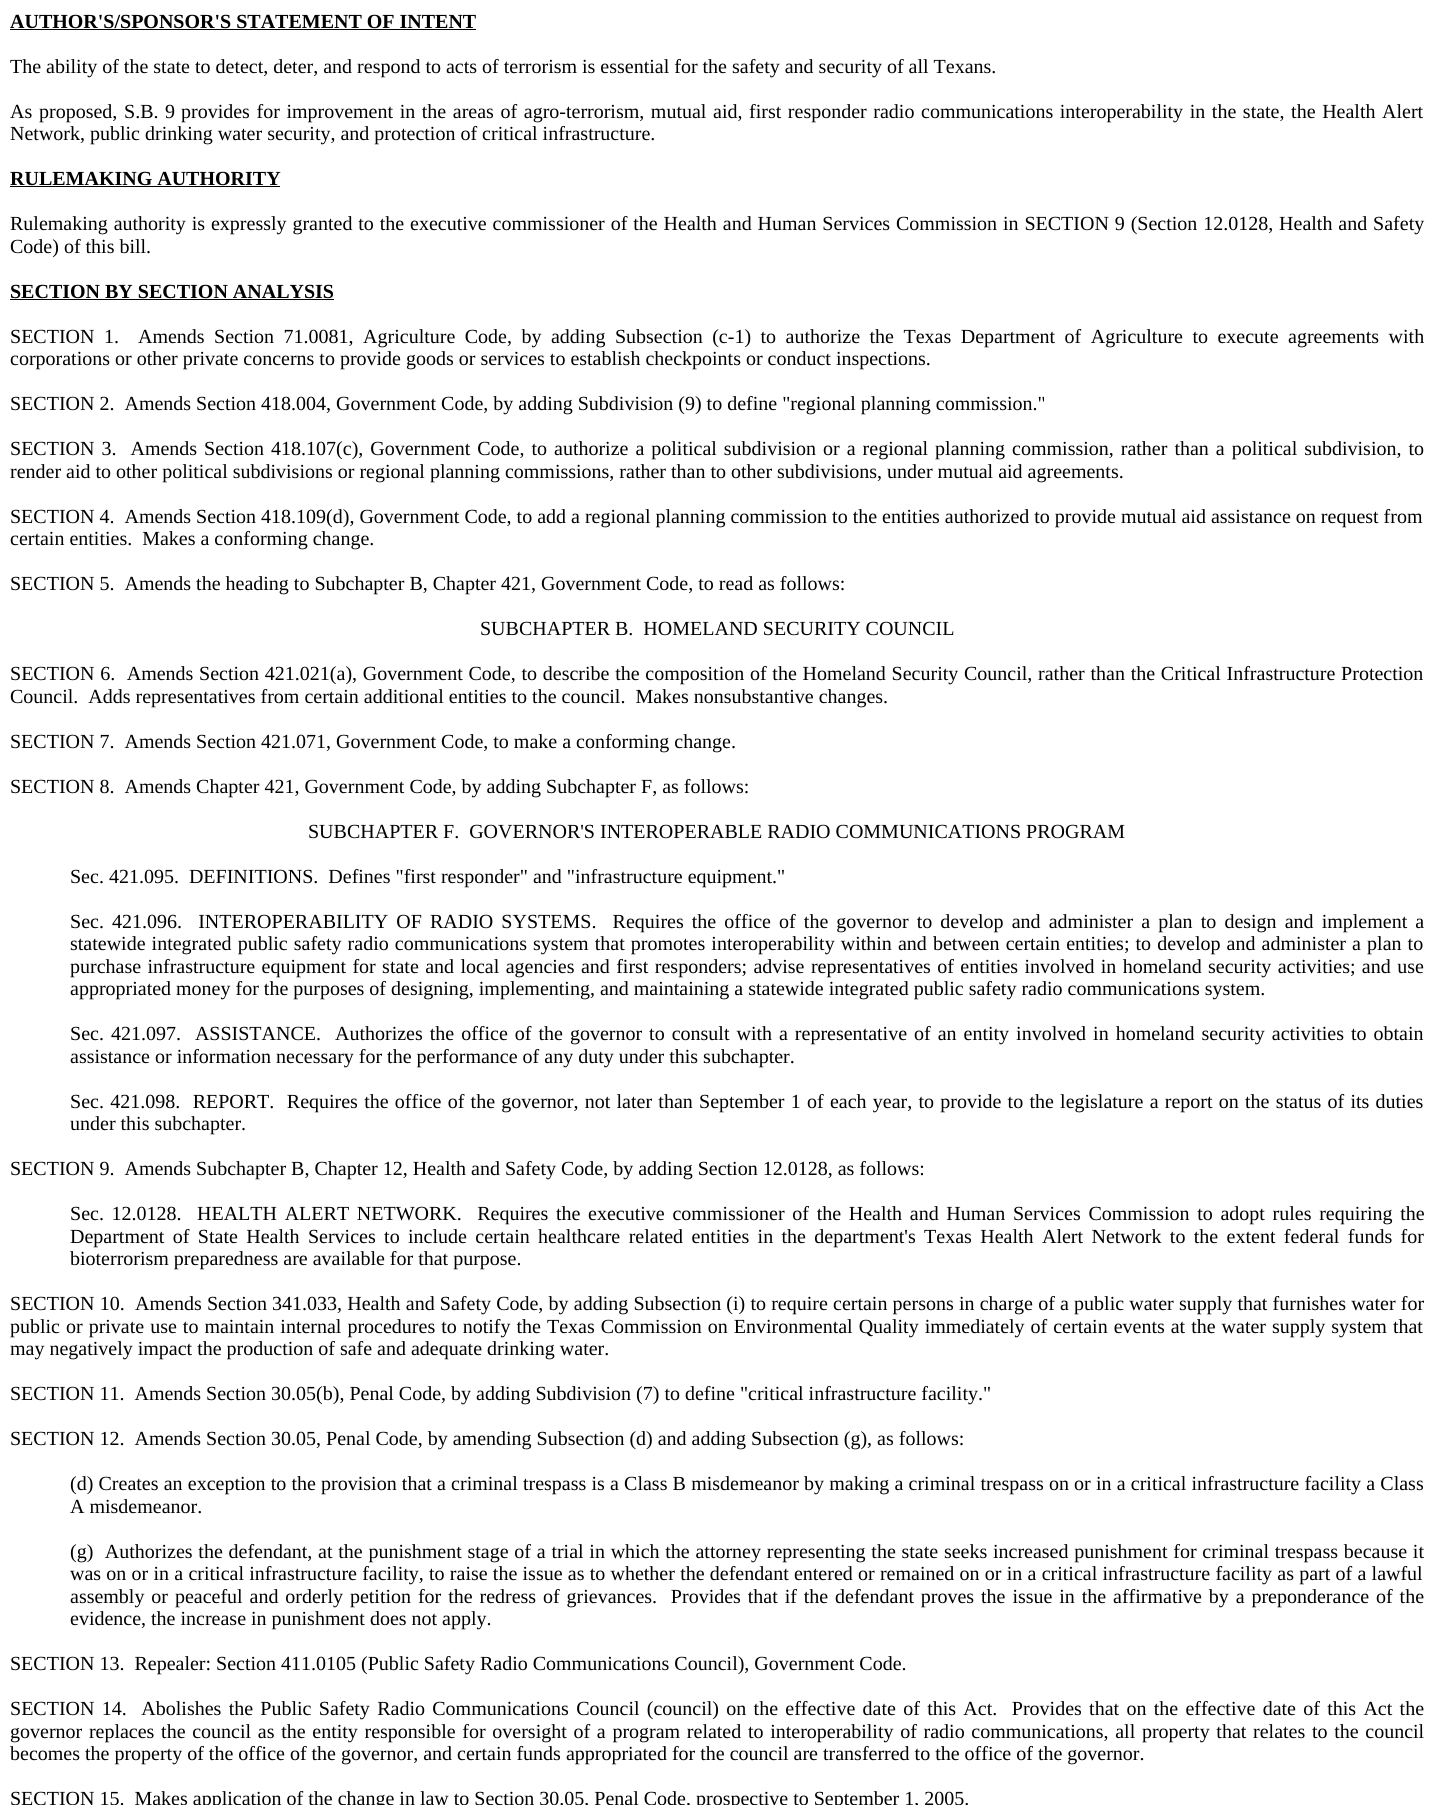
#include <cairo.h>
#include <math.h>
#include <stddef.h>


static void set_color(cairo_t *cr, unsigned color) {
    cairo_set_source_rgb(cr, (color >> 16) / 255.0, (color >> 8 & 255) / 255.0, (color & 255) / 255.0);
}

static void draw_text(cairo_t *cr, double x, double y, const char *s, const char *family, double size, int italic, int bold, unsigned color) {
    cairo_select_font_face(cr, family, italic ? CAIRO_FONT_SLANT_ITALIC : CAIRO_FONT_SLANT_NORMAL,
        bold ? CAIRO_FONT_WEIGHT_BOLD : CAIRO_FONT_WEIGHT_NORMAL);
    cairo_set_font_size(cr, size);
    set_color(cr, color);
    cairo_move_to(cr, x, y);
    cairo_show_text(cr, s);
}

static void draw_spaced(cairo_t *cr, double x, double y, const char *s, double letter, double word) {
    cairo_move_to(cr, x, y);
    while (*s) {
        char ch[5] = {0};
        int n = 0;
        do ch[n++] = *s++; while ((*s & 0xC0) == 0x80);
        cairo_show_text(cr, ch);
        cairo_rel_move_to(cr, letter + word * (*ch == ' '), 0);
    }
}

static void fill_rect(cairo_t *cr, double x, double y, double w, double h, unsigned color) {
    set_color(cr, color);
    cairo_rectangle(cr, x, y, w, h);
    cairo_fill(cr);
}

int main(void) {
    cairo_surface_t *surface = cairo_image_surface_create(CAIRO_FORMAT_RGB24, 1433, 1805);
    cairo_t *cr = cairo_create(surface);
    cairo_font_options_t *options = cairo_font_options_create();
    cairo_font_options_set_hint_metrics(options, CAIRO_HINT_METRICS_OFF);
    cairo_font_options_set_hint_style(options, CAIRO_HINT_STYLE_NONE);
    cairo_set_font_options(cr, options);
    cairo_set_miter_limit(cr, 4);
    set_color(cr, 0xFFFFFF);
    cairo_paint(cr);
    draw_text(cr, 10, 28, "AUTHOR'S/SPONSOR'S STATEMENT OF INTENT", "Liberation Serif", 20, 0, 1, 0x000000);
    fill_rect(cr, 10, 29, 466, 1, 0x000000);
    draw_text(cr, 10, 73, "The ability of the state to detect, deter, and respond to acts of terrorism is essential for the safety and security of all Texans.", "Liberation Serif", 20, 0, 0, 0x000000);
    draw_text(cr, 10, 118, "As", "Liberation Serif", 20, 0, 0, 0x000000);
    draw_text(cr, 39, 118, "proposed,", "Liberation Serif", 20, 0, 0, 0x000000);
    draw_spaced(cr, 124, 118, "S.B. 9", 0, 1.6);
    draw_spaced(cr, 181, 118, "provides for improvement in the areas of agro-terrorism, mutual aid, first responder radio communications interoperability in the state, the Health Alert", 0, 1.6);
    draw_text(cr, 10, 140, "Network, public drinking water security, and protection of critical infrastructure.", "Liberation Serif", 20, 0, 0, 0x000000);
    draw_text(cr, 10, 185, "RULEMAKING AUTHORITY", "Liberation Serif", 20, 0, 1, 0x000000);
    fill_rect(cr, 10, 186, 270, 1, 0x000000);
    cairo_select_font_face(cr, "Liberation Serif", CAIRO_FONT_SLANT_NORMAL, CAIRO_FONT_WEIGHT_NORMAL);
    draw_spaced(cr, 10, 230, "Rulemaking authority is expressly granted to the executive commissioner of the Health and Human Services Commission in SECTION 9 (Section 12.0128, Health and Safety", 0, 0.9);
    draw_text(cr, 10, 253, "Code) of this bill.", "Liberation Serif", 20, 0, 0, 0x000000);
    draw_text(cr, 10, 298, "SECTION BY SECTION ANALYSIS", "Liberation Serif", 20, 0, 1, 0x000000);
    fill_rect(cr, 10, 299, 324, 1, 0x000000);
    cairo_select_font_face(cr, "Liberation Serif", CAIRO_FONT_SLANT_NORMAL, CAIRO_FONT_WEIGHT_NORMAL);
    draw_spaced(cr, 10, 343, "SECTION 1.  Amends Section 71.0081, Agriculture Code, by adding Subsection (c-1) to authorize the Texas Department of Agriculture to execute agreements with", 0, 4.5);
    draw_text(cr, 10, 365, "corporations or other private concerns to provide goods or services to establish checkpoints or conduct inspections.", "Liberation Serif", 20, 0, 0, 0x000000);
    draw_text(cr, 10, 410, "SECTION 2.  Amends Section 418.004, Government Code, by adding Subdivision (9) to define \"regional planning commission.\"", "Liberation Serif", 20, 0, 0, 0x000000);
    draw_spaced(cr, 10, 455, "SECTION 3.  Amends Section 418.107(c), Government Code, to authorize a political subdivision or a regional planning commission, rather than a political subdivision, to", 0, 2);
    draw_text(cr, 10, 478, "render aid to other political subdivisions or regional planning commissions, rather than to other subdivisions, under mutual aid agreements.", "Liberation Serif", 20, 0, 0, 0x000000);
    draw_text(cr, 10, 523, "SECTION 4.  Amends Section 418.109(d), Government Code, to add a regional planning commission to the entities authorized to provide mutual aid assistance on request from", "Liberation Serif", 20, 0, 0, 0x000000);
    draw_text(cr, 10, 545, "certain entities.  Makes a conforming change.", "Liberation Serif", 20, 0, 0, 0x000000);
    draw_text(cr, 10, 590, "SECTION 5.  Amends the heading to Subchapter B, Chapter 421, Government Code, to read as follows:", "Liberation Serif", 20, 0, 0, 0x000000);
    draw_text(cr, 480, 635, "SUBCHAPTER B.  HOMELAND SECURITY COUNCIL", "Liberation Serif", 20, 0, 0, 0x000000);
    draw_spaced(cr, 10, 680, "SECTION 6.  Amends Section 421.021(a), Government Code, to describe the composition of the Homeland Security Council, rather than the Critical Infrastructure Protection", 0, 0.75);
    draw_text(cr, 10, 703, "Council.  Adds representatives from certain additional entities to the council.  Makes nonsubstantive changes.", "Liberation Serif", 20, 0, 0, 0x000000);
    draw_text(cr, 10, 748, "SECTION 7.  Amends Section 421.071, Government Code, to make a conforming change.", "Liberation Serif", 20, 0, 0, 0x000000);
    draw_text(cr, 10, 793, "SECTION 8.  Amends Chapter 421, Government Code, by adding Subchapter F, as follows:", "Liberation Serif", 20, 0, 0, 0x000000);
    draw_text(cr, 308, 838, "SUBCHAPTER F.  GOVERNOR'S INTEROPERABLE RADIO COMMUNICATIONS PROGRAM", "Liberation Serif", 20, 0, 0, 0x000000);
    draw_text(cr, 70, 883, "Sec. 421.095.  DEFINITIONS.  Defines \"first responder\" and \"infrastructure equipment.\"", "Liberation Serif", 20, 0, 0, 0x000000);
    draw_spaced(cr, 70, 928, "Sec. 421.096.  INTEROPERABILITY OF RADIO SYSTEMS.  Requires the office of the governor to develop and administer a plan to design and implement a", 0, 3.1);
    draw_spaced(cr, 70, 950, "statewide integrated public safety radio communications system that promotes interoperability within and between certain entities; to develop and administer a plan to", 0, 1.1);
    draw_spaced(cr, 70, 973, "purchase infrastructure equipment for state and local agencies and first responders; advise representatives of entities involved in homeland security activities; and use", 0, 1.4);
    draw_text(cr, 70, 995, "appropriated money for the purposes of designing, implementing, and maintaining a statewide integrated public safety radio communications system.", "Liberation Serif", 20, 0, 0, 0x000000);
    draw_spaced(cr, 70, 1040, "Sec. 421.097.  ASSISTANCE.  Authorizes the office of the governor to consult with a representative of an entity involved in homeland security activities to obtain", 0, 2);
    draw_text(cr, 70, 1063, "assistance or information necessary for the performance of any duty under this subchapter.", "Liberation Serif", 20, 0, 0, 0x000000);
    draw_spaced(cr, 70, 1108, "Sec. 421.098.  REPORT.  Requires the office of the governor, not later than September 1 of each year, to provide to the legislature a report on the status of its duties", 0, 1.25);
    draw_text(cr, 70, 1130, "under this subchapter.", "Liberation Serif", 20, 0, 0, 0x000000);
    draw_text(cr, 10, 1175, "SECTION 9.  Amends Subchapter B, Chapter 12, Health and Safety Code, by adding Section 12.0128, as follows:", "Liberation Serif", 20, 0, 0, 0x000000);
    draw_spaced(cr, 70, 1220, "Sec. 12.0128.  HEALTH ALERT NETWORK.  Requires the executive commissioner of the Health and Human Services Commission to adopt rules requiring the", 0, 2.7);
    draw_spaced(cr, 70, 1243, "Department of State Health Services to include certain healthcare related entities in the department's Texas Health Alert Network to the extent federal funds for", 0, 3.4);
    draw_text(cr, 70, 1265, "bioterrorism preparedness are available for that purpose.", "Liberation Serif", 20, 0, 0, 0x000000);
    draw_spaced(cr, 10, 1310, "SECTION 10.  Amends Section 341.033, Health and Safety Code, by adding Subsection (i) to require certain persons in charge of a public water supply that furnishes water for", 0, 0.2);
    draw_spaced(cr, 10, 1333, "public or private use to maintain internal procedures to notify the Texas Commission on Environmental Quality immediately of certain events at the water supply system that", 0, 1);
    draw_text(cr, 10, 1355, "may negatively impact the production of safe and adequate drinking water.", "Liberation Serif", 20, 0, 0, 0x000000);
    draw_text(cr, 10, 1400, "SECTION 11.  Amends Section 30.05(b), Penal Code, by adding Subdivision (7) to define \"critical infrastructure facility.\"", "Liberation Serif", 20, 0, 0, 0x000000);
    draw_text(cr, 10, 1445, "SECTION 12.  Amends Section 30.05, Penal Code, by amending Subsection (d) and adding Subsection (g), as follows:", "Liberation Serif", 20, 0, 0, 0x000000);
    draw_spaced(cr, 70, 1490, "(d) Creates an exception to the provision that a criminal trespass is a Class B misdemeanor by making a criminal trespass on or in a critical infrastructure facility a Class", 0, 0.2);
    draw_text(cr, 70, 1513, "A misdemeanor.", "Liberation Serif", 20, 0, 0, 0x000000);
    draw_spaced(cr, 70, 1558, "(g)  Authorizes the defendant, at the punishment stage of a trial in which the attorney representing the state seeks increased punishment for criminal trespass because it", 0, 0.75);
    draw_spaced(cr, 70, 1580, "was on or in a critical infrastructure facility, to raise the issue as to whether the defendant entered or remained on or in a critical infrastructure facility as part of a lawful", 0, 0.25);
    draw_spaced(cr, 70, 1603, "assembly or peaceful and orderly petition for the redress of grievances.  Provides that if the defendant proves the issue in the affirmative by a preponderance of the", 0, 1.9);
    draw_text(cr, 70, 1625, "evidence, the increase in punishment does not apply.", "Liberation Serif", 20, 0, 0, 0x000000);
    draw_text(cr, 10, 1670, "SECTION 13.  Repealer: Section 411.0105 (Public Safety Radio Communications Council), Government Code.", "Liberation Serif", 20, 0, 0, 0x000000);
    draw_spaced(cr, 10, 1715, "SECTION 14.  Abolishes the Public Safety Radio Communications Council (council) on the effective date of this Act.  Provides that on the effective date of this Act the", 0, 2.3);
    draw_spaced(cr, 10, 1738, "governor replaces the council as the entity responsible for oversight of a program related to interoperability of radio communications, all property that relates to the council", 0, 1.7);
    draw_text(cr, 10, 1760, "becomes the property of the office of the governor, and certain funds appropriated for the council are transferred to the office of the governor.", "Liberation Serif", 20, 0, 0, 0x000000);
    draw_text(cr, 10, 1805, "SECTION 15.  Makes application of the change in law to Section 30.05, Penal Code, prospective to September 1, 2005.", "Liberation Serif", 20, 0, 0, 0x000000);
    cairo_surface_write_to_png(surface, "output.png");
    cairo_font_options_destroy(options);
    cairo_destroy(cr);
    cairo_surface_destroy(surface);
    return 0;
}
